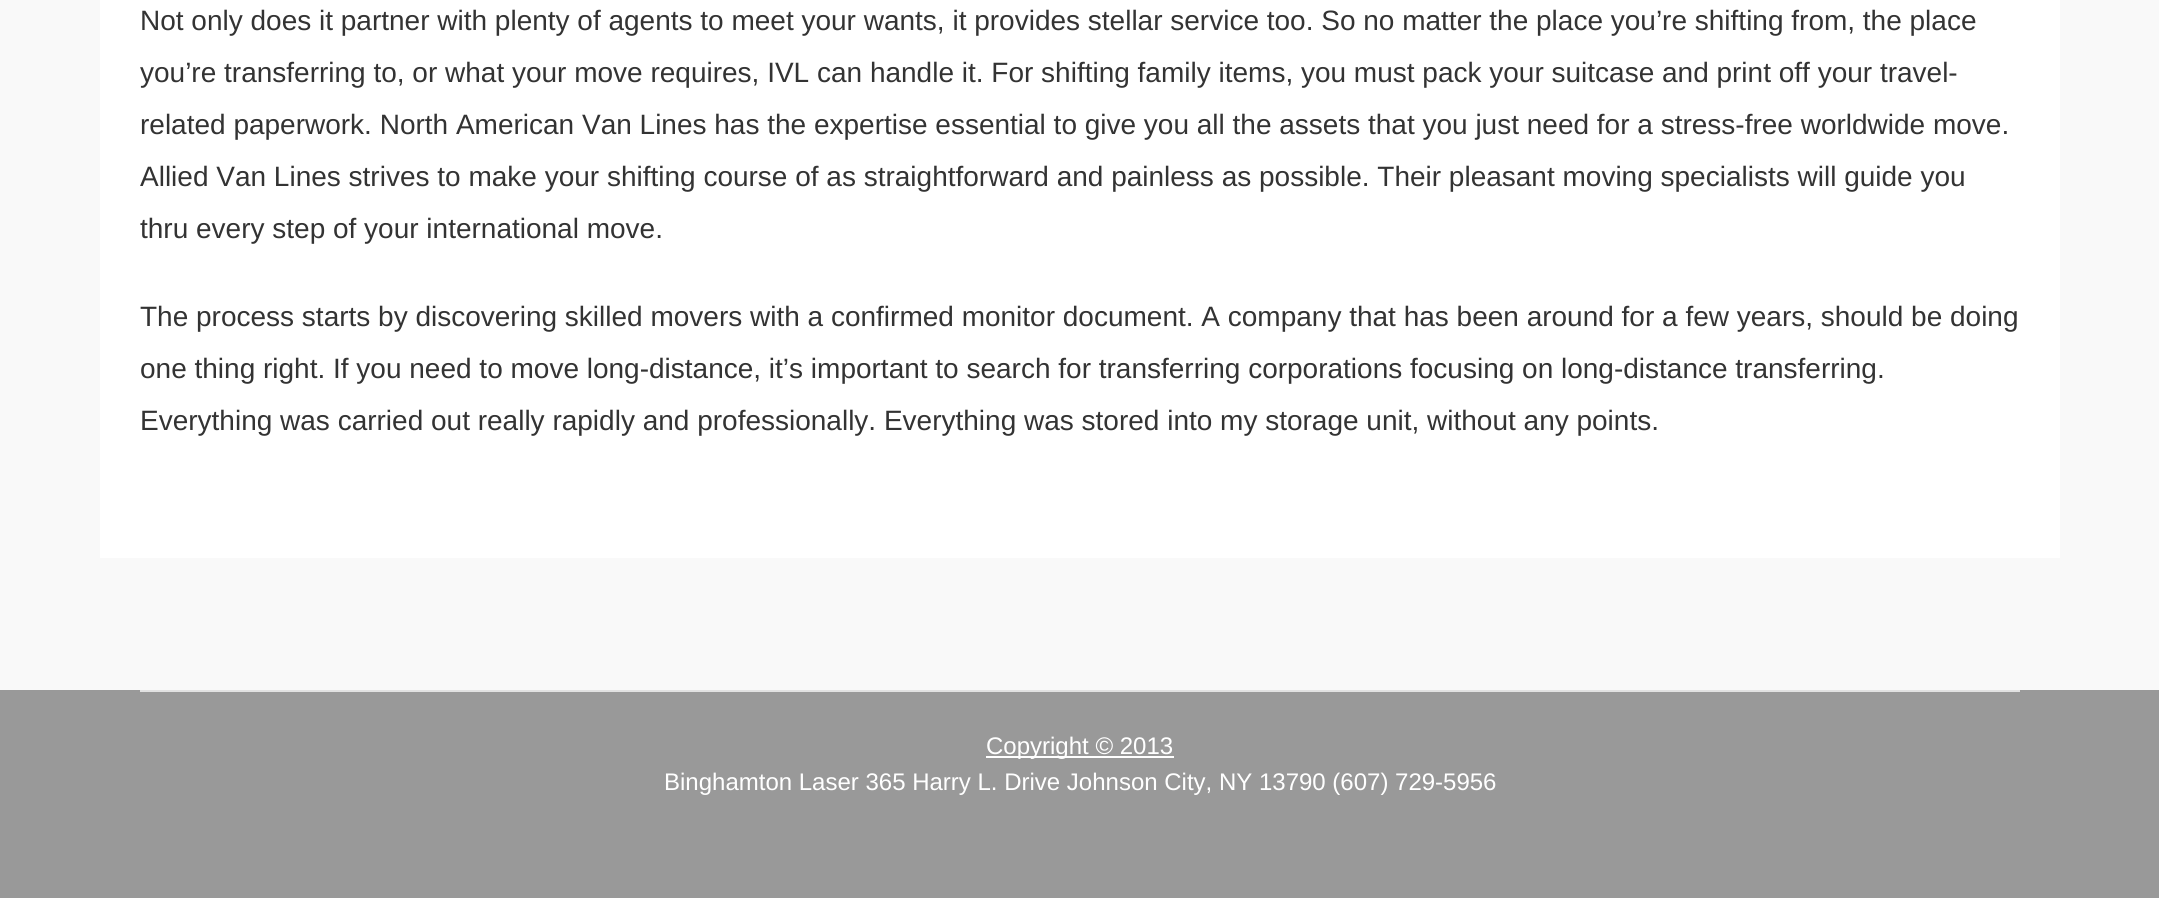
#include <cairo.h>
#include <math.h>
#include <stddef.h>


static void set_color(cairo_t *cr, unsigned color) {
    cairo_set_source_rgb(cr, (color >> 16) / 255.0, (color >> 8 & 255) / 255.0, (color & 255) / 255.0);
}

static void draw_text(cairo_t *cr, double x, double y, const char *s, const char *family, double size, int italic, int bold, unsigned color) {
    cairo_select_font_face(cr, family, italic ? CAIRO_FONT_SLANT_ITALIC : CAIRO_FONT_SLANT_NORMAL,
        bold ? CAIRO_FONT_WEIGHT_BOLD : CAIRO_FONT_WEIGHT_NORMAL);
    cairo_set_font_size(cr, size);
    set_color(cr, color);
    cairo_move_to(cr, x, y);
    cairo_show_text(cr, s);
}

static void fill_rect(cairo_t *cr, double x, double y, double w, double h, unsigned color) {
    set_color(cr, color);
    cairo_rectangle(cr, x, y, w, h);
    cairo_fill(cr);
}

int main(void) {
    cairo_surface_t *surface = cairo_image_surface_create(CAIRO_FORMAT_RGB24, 2159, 898);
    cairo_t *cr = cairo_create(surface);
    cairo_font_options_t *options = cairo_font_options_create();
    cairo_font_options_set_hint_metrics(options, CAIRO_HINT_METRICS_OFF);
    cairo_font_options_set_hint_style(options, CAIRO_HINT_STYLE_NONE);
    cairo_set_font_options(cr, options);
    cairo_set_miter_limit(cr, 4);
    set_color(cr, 0xF9F9F9);
    cairo_paint(cr);
    fill_rect(cr, 100, 0, 1960, 558, 0xFFFFFF);
    draw_text(cr, 140, 30, "Not only does it partner with plenty of agents to meet your wants, it provides stellar service too. So no matter the place you’re shifting from, the place", "Liberation Sans", 28, 0, 0, 0x333333);
    draw_text(cr, 140, 82, "you’re transferring to, or what your move requires, IVL can handle it. For shifting family items, you must pack your suitcase and print off your travel-", "Liberation Sans", 28, 0, 0, 0x333333);
    draw_text(cr, 140, 134, "related paperwork. North American Van Lines has the expertise essential to give you all the assets that you just need for a stress-free worldwide move.", "Liberation Sans", 28, 0, 0, 0x333333);
    draw_text(cr, 140, 186, "Allied Van Lines strives to make your shifting course of as straightforward and painless as possible. Their pleasant moving specialists will guide you", "Liberation Sans", 28, 0, 0, 0x333333);
    draw_text(cr, 140, 238, "thru every step of your international move.", "Liberation Sans", 28, 0, 0, 0x333333);
    draw_text(cr, 140, 326, "The process starts by discovering skilled movers with a confirmed monitor document. A company that has been around for a few years, should be doing", "Liberation Sans", 28, 0, 0, 0x333333);
    draw_text(cr, 140, 378, "one thing right. If you need to move long-distance, it’s important to search for transferring corporations focusing on long-distance transferring.", "Liberation Sans", 28, 0, 0, 0x333333);
    draw_text(cr, 140, 430, "Everything was carried out really rapidly and professionally. Everything was stored into my storage unit, without any points.", "Liberation Sans", 28, 0, 0, 0x333333);
    fill_rect(cr, 0, 690, 2159, 208, 0x999999);
    fill_rect(cr, 140, 690, 1880, 2, 0xE1E1E1);
    fill_rect(cr, 986, 756, 188, 2, 0xFFFFFF);
    draw_text(cr, 986, 754, "Copyright © 2013", "Liberation Sans", 24, 0, 0, 0xFFFFFF);
    draw_text(cr, 664, 790, "Binghamton Laser 365 Harry L. Drive Johnson City, NY 13790 (607) 729-5956", "Liberation Sans", 24, 0, 0, 0xFFFFFF);
    cairo_surface_write_to_png(surface, "output.png");
    cairo_font_options_destroy(options);
    cairo_destroy(cr);
    cairo_surface_destroy(surface);
    return 0;
}
